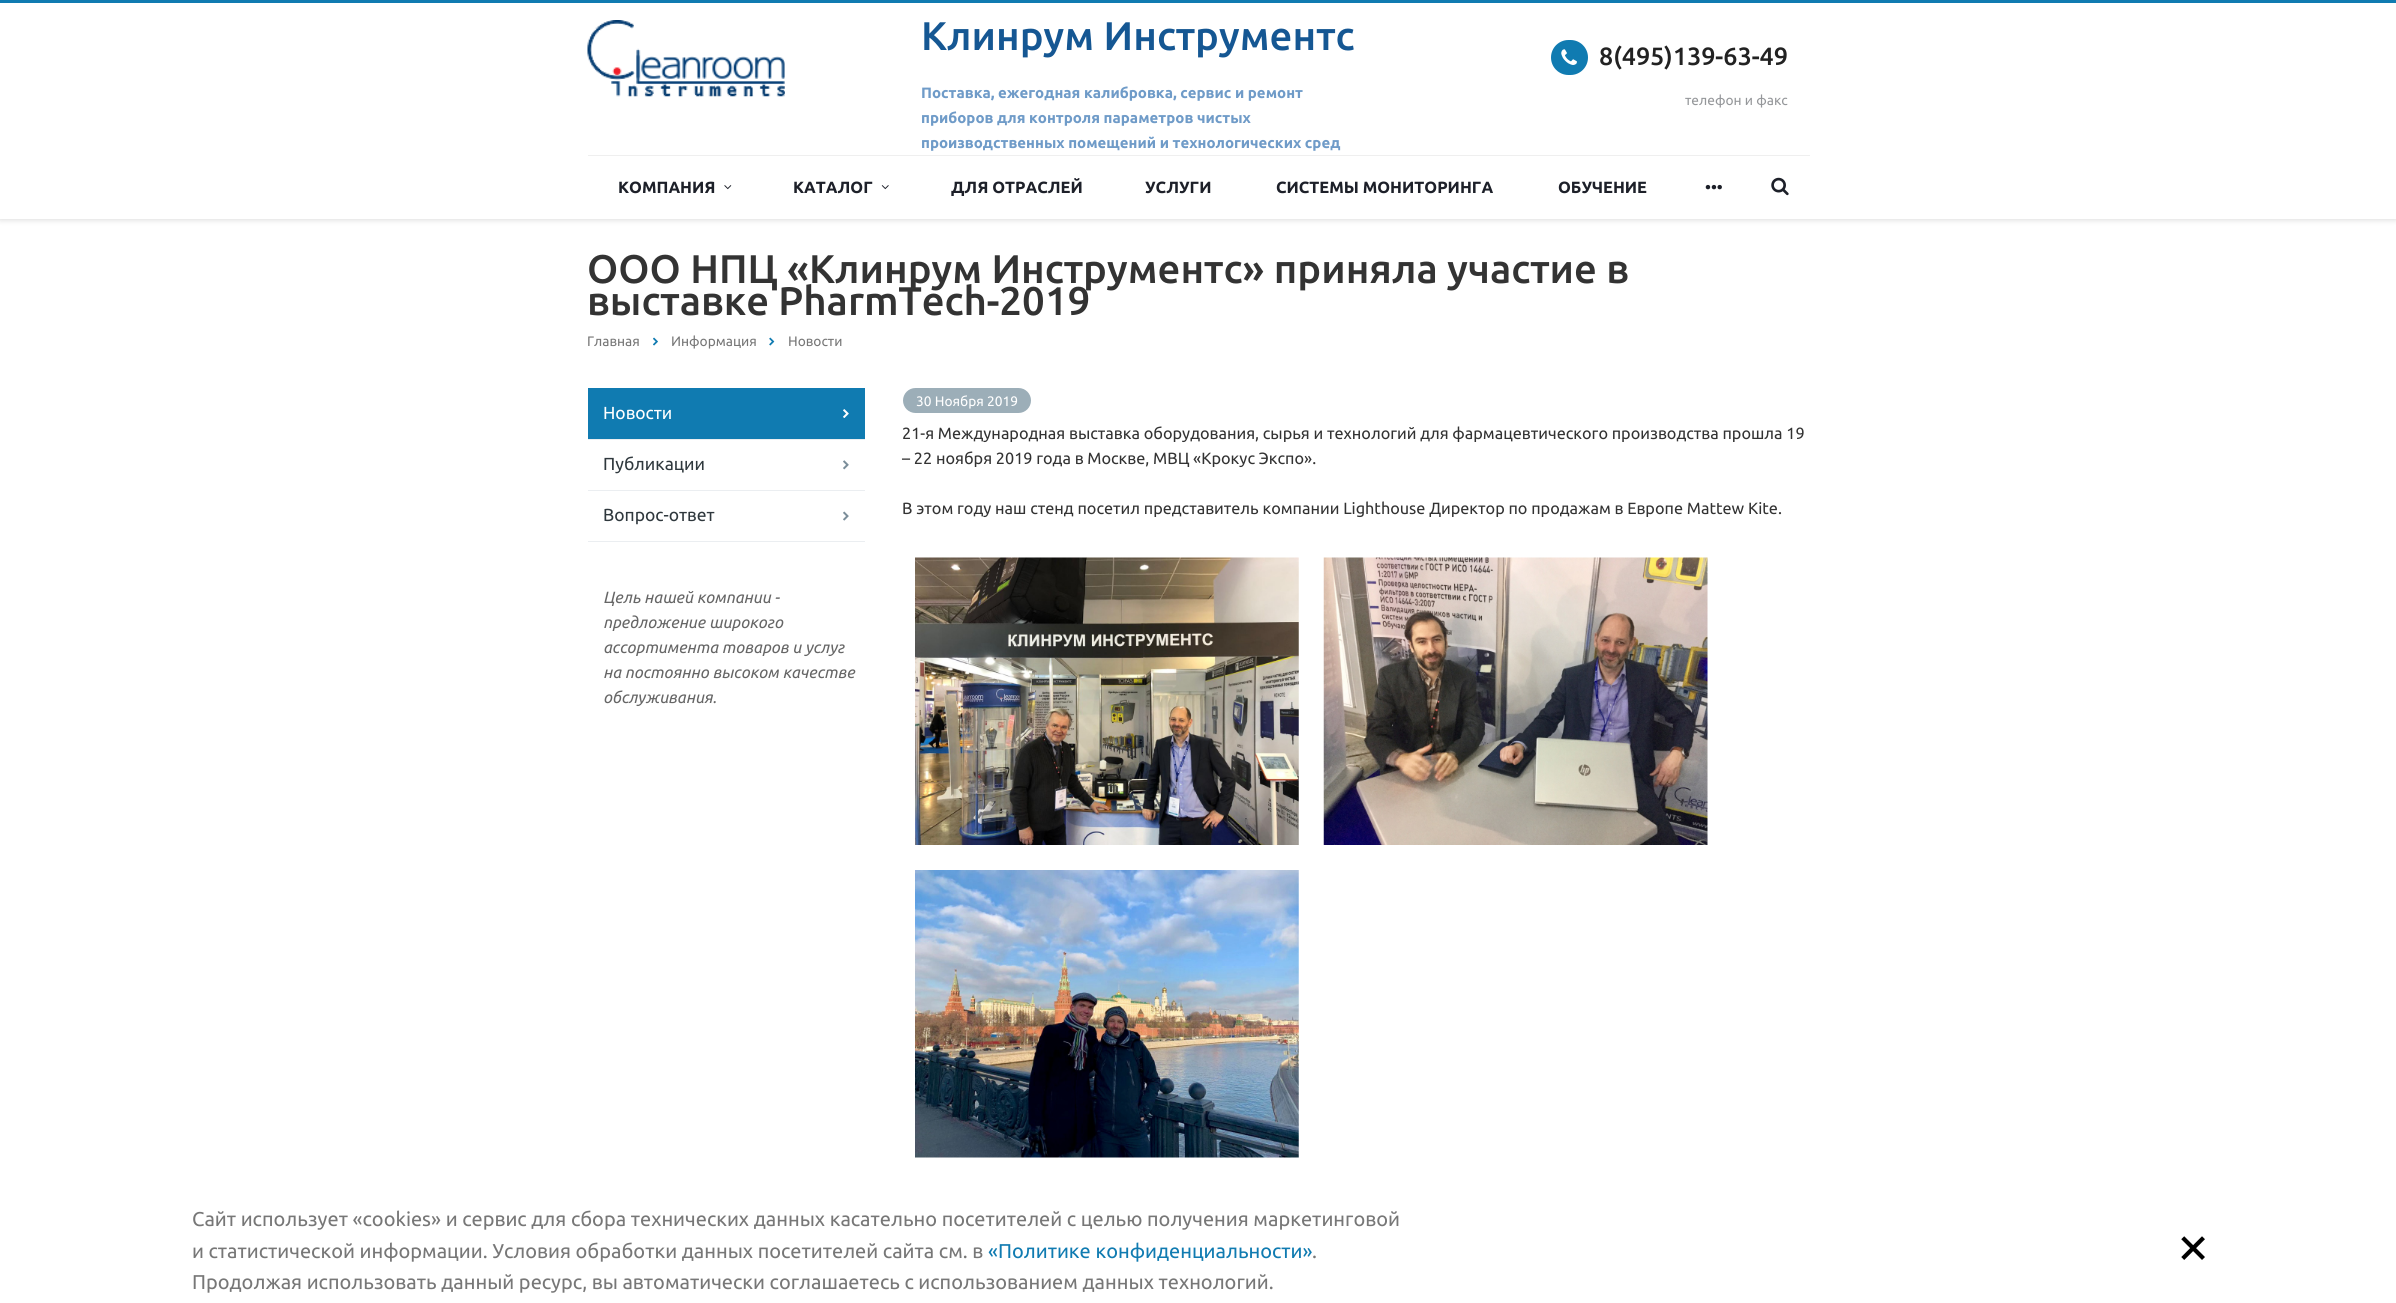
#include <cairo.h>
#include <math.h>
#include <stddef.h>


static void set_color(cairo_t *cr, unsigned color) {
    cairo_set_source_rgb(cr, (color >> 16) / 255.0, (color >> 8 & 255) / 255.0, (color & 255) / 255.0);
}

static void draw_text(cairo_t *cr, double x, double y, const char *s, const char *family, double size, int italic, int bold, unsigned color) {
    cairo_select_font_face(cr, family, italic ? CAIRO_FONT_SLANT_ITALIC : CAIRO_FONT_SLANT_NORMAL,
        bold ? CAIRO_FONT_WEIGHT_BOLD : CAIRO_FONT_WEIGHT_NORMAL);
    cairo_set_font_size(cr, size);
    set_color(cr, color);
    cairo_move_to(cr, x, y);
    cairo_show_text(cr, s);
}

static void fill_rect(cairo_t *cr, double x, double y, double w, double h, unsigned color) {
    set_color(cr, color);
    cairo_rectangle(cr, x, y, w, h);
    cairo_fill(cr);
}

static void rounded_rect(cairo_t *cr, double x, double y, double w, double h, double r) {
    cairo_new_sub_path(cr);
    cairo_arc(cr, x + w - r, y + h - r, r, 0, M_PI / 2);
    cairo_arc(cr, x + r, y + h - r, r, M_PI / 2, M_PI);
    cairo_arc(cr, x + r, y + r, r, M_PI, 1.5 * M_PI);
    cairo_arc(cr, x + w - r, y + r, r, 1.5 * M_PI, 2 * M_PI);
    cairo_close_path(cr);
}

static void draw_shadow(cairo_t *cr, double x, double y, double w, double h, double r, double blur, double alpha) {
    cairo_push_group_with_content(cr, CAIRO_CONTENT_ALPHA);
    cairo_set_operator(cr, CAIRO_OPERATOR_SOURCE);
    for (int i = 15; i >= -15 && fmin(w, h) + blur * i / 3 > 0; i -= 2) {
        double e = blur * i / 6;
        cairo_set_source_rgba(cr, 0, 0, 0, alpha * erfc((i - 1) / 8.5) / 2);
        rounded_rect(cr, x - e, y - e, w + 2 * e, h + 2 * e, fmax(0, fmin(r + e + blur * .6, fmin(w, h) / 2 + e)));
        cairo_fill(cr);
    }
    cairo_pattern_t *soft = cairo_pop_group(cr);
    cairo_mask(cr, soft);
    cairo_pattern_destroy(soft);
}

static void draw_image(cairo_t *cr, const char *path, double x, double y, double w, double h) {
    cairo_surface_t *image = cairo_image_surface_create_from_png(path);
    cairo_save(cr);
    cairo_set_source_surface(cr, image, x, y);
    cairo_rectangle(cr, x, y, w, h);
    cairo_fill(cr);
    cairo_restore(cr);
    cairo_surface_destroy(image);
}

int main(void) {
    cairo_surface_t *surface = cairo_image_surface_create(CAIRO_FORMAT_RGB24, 2396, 1303);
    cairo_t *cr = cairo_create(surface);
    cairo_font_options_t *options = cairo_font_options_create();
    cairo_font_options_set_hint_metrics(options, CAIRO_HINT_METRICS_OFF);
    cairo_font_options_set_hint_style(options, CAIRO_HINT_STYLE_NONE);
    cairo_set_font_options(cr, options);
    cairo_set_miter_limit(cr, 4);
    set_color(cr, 0xFFFFFF);
    cairo_paint(cr);
    cairo_save(cr);
    cairo_set_fill_rule(cr, CAIRO_FILL_RULE_EVEN_ODD);
    cairo_new_path(cr);
    cairo_move_to(cr, 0, 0);
    cairo_line_to(cr, 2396, 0);
    cairo_line_to(cr, 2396, 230);
    cairo_line_to(cr, 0, 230);
    cairo_close_path(cr);
    cairo_move_to(cr, 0, 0);
    cairo_line_to(cr, 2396, 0);
    cairo_line_to(cr, 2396, 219);
    cairo_line_to(cr, 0, 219);
    cairo_close_path(cr);
    cairo_clip(cr);
    set_color(cr, 0x000000);
    draw_shadow(cr, 0, 1, 2396, 219, 0, 3, 0.14);
    cairo_restore(cr);
    fill_rect(cr, 0, 0, 2396, 3, 0x107BB1);
    draw_image(cr, "assets/img1.png", 587, 20, 198, 77);
    draw_text(cr, 921, 50, "Клинрум Инструментс", "Ubuntu Medium", 40, 0, 0, 0x155793);
    draw_text(cr, 921, 98, "Поставка, ежегодная калибровка, сервис и ремонт", "Ubuntu", 15, 0, 1, 0x6F9BC8);
    draw_text(cr, 921, 123, "приборов для контроля параметров чистых", "Ubuntu", 15, 0, 1, 0x6F9BC8);
    draw_text(cr, 921, 148, "производственных помещений и технологических сред", "Ubuntu", 15, 0, 1, 0x6F9BC8);
    set_color(cr, 0x107BB1);
    rounded_rect(cr, 1551, 40, 37, 35, 17.5);
    cairo_fill(cr);
    draw_image(cr, "assets/img2.png", 1561, 49, 16, 16);
    draw_text(cr, 1599, 65, "8(495)139-63-49", "Ubuntu Medium", 25, 0, 0, 0x222222);
    draw_text(cr, 1685, 105, "телефон и факс", "Ubuntu", 13.75, 0, 0, 0x95979A);
    fill_rect(cr, 588, 155, 1222, 1, 0xEFEFEF);
    draw_text(cr, 618, 193, "КОМПАНИЯ", "Ubuntu", 16.25, 0, 1, 0x1D2029);
    draw_image(cr, "assets/img3.png", 724, 185, 8, 5);
    draw_text(cr, 793, 193, "КАТАЛОГ", "Ubuntu", 16.25, 0, 1, 0x1D2029);
    draw_image(cr, "assets/img4.png", 881, 185, 8, 5);
    draw_text(cr, 951, 193, "ДЛЯ ОТРАСЛЕЙ", "Ubuntu", 16.25, 0, 1, 0x1D2029);
    draw_text(cr, 1145, 193, "УСЛУГИ", "Ubuntu", 16.25, 0, 1, 0x1D2029);
    draw_text(cr, 1276, 193, "СИСТЕМЫ МОНИТОРИНГА", "Ubuntu", 16.25, 0, 1, 0x1D2029);
    draw_text(cr, 1558, 193, "ОБУЧЕНИЕ", "Ubuntu", 16.25, 0, 1, 0x1D2029);
    draw_text(cr, 1705, 189, "...", "Ubuntu", 24, 0, 1, 0x1D2029);
    draw_image(cr, "assets/img5.png", 1771, 177, 18, 19);
    draw_text(cr, 587, 283, "ООО НПЦ «Клинрум Инструментс» приняла участие в", "Ubuntu Medium", 40, 0, 0, 0x333333);
    draw_text(cr, 587, 315, "выставке PharmTech-2019", "Ubuntu Medium", 40, 0, 0, 0x333333);
    draw_text(cr, 587, 346, "Главная", "Ubuntu", 13.75, 0, 0, 0x777777);
    draw_image(cr, "assets/img6.png", 653, 337, 5, 9);
    draw_text(cr, 671, 346, "Информация", "Ubuntu", 13.75, 0, 0, 0x777777);
    draw_image(cr, "assets/img7.png", 769, 337, 6, 9);
    draw_text(cr, 788, 346, "Новости", "Ubuntu", 13.75, 0, 0, 0x777777);
    fill_rect(cr, 588, 541, 277, 1, 0xEBEEF1);
    fill_rect(cr, 588, 388, 277, 51, 0x107BB1);
    draw_text(cr, 603, 419, "Новости", "Ubuntu", 17.5, 0, 0, 0xFFFFFF);
    draw_image(cr, "assets/img8.png", 843, 409, 6, 9);
    fill_rect(cr, 588, 439, 277, 1, 0xEBEEF1);
    draw_text(cr, 603, 470, "Публикации", "Ubuntu", 17.5, 0, 0, 0x2F383D);
    draw_image(cr, "assets/img9.png", 843, 460, 6, 10);
    fill_rect(cr, 588, 490, 277, 1, 0xEBEEF1);
    draw_text(cr, 603, 521, "Вопрос-ответ", "Ubuntu", 17.5, 0, 0, 0x2F383D);
    draw_image(cr, "assets/img10.png", 843, 511, 6, 10);
    draw_text(cr, 603, 603, "Цель нашей компании -", "Ubuntu", 16.25, 1, 0, 0x666666);
    draw_text(cr, 603, 628, "предложение широкого", "Ubuntu", 16.25, 1, 0, 0x666666);
    draw_text(cr, 603, 653, "ассортимента товаров и услуг", "Ubuntu", 16.25, 1, 0, 0x666666);
    draw_text(cr, 603, 678, "на постоянно высоком качестве", "Ubuntu", 16.25, 1, 0, 0x666666);
    draw_text(cr, 603, 703, "обслуживания.", "Ubuntu", 16.25, 1, 0, 0x666666);
    set_color(cr, 0x9CAEB8);
    rounded_rect(cr, 903, 388, 128, 25, 12.5);
    cairo_fill(cr);
    draw_text(cr, 916, 406, "30 Ноября 2019", "Ubuntu", 13.75, 0, 0, 0xFFFFFF);
    draw_text(cr, 902, 439, "21-я Международная выставка оборудования, сырья и технологий для фармацевтического производства прошла 19", "Ubuntu", 16.25, 0, 0, 0x333333);
    draw_text(cr, 902, 464, "– 22 ноября 2019 года в Москве, МВЦ «Крокус Экспо».", "Ubuntu", 16.25, 0, 0, 0x333333);
    draw_text(cr, 902, 514, "В этом году наш стенд посетил представитель компании Lighthouse Директор по продажам в Европе Mattew Kite.", "Ubuntu", 16.25, 0, 0, 0x333333);
    draw_image(cr, "assets/img11.png", 915, 557, 384, 288);
    draw_image(cr, "assets/img12.png", 1323, 557, 385, 288);
    draw_image(cr, "assets/img13.png", 915, 870, 384, 288);
    draw_text(cr, 192, 1226, "Сайт использует «cookies» и сервис для сбора технических данных касательно посетителей с целью получения маркетинговой", "Ubuntu", 20, 0, 0, 0x777777);
    draw_text(cr, 192, 1258, "и статистической информации. Условия обработки данных посетителей сайта см. в", "Ubuntu", 20, 0, 0, 0x777777);
    draw_text(cr, 988, 1258, "«Политике конфиденциальности»", "Ubuntu", 20, 0, 0, 0x107BB1);
    draw_text(cr, 1312, 1258, ".", "Ubuntu", 20, 0, 0, 0x777777);
    draw_text(cr, 192, 1289, "Продолжая использовать данный ресурс, вы автоматически соглашаетесь с использованием данных технологий.", "Ubuntu", 20, 0, 0, 0x777777);
    draw_image(cr, "assets/img14.png", 2181, 1236, 24, 24);
    cairo_surface_write_to_png(surface, "output.png");
    cairo_font_options_destroy(options);
    cairo_destroy(cr);
    cairo_surface_destroy(surface);
    return 0;
}
